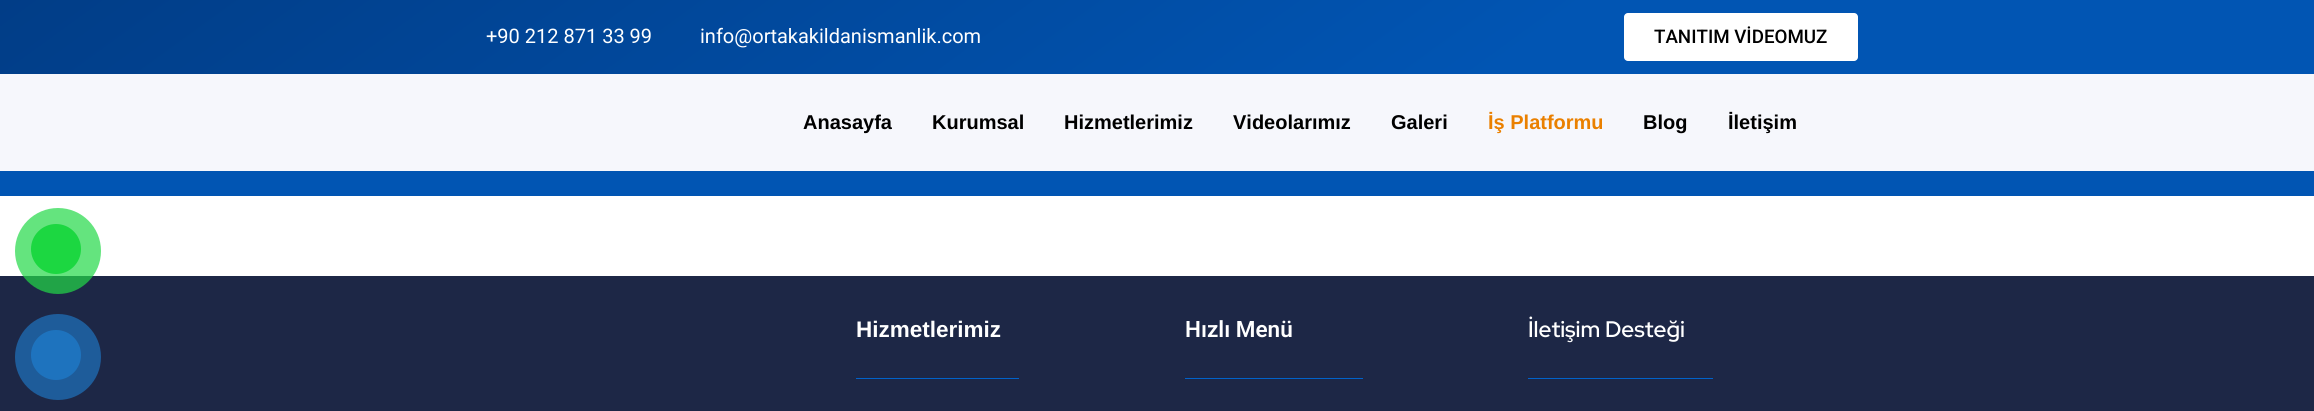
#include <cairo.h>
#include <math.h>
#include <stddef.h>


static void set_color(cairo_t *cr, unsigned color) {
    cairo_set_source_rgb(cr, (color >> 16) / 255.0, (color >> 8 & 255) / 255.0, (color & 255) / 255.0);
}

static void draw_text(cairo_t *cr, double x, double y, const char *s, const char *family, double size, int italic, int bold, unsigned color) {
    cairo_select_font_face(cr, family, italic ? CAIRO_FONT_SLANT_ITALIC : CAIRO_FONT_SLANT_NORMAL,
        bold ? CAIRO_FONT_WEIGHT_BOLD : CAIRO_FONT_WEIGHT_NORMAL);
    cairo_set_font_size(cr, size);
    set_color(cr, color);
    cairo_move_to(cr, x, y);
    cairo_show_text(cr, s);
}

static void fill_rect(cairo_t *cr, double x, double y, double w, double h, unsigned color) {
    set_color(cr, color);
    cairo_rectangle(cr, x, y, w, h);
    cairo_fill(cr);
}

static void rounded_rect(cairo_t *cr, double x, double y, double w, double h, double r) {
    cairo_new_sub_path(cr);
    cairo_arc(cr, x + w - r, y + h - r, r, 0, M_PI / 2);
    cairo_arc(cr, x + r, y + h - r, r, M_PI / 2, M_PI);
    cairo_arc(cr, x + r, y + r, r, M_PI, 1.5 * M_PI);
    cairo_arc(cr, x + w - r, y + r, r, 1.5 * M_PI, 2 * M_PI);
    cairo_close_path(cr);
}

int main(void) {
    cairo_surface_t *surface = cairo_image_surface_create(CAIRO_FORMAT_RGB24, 2314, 411);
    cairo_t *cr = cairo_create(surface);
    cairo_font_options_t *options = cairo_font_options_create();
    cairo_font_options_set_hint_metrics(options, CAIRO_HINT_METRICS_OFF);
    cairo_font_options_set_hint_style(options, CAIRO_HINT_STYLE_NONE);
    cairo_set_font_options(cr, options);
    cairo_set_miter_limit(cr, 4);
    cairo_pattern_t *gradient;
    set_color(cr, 0xFFFFFF);
    cairo_paint(cr);
    gradient = cairo_pattern_create_linear(740, -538, 1575, 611);
    cairo_pattern_add_color_stop_rgba(gradient, 0, 0.004, 0.239, 0.529, 1);
    cairo_pattern_add_color_stop_rgba(gradient, 0.66, 0.004, 0.333, 0.702, 1);
    cairo_set_source(cr, gradient);
    cairo_pattern_destroy(gradient);
    cairo_rectangle(cr, 0, 0, 2314, 74);
    cairo_fill(cr);
    draw_text(cr, 486, 43, "+90 212 871 33 99", "Roboto", 20, 0, 0, 0xFFFFFF);
    draw_text(cr, 700, 43, "info@ortakakildanismanlik.com", "Roboto", 20, 0, 0, 0xFFFFFF);
    rounded_rect(cr, 1624, 13, 234, 48, 4);
    cairo_fill(cr);
    draw_text(cr, 1654, 43, "TANITIM VİDEOMUZ", "Roboto Medium", 18.75, 0, 0, 0x000000);
    fill_rect(cr, 0, 74, 2314, 97, 0xF6F7FC);
    draw_text(cr, 803, 129, "Anasayfa", "Liberation Sans", 20, 0, 1, 0x000000);
    draw_text(cr, 932, 129, "Kurumsal", "Liberation Sans", 20, 0, 1, 0x000000);
    draw_text(cr, 1064, 129, "Hizmetlerimiz", "Liberation Sans", 20, 0, 1, 0x000000);
    draw_text(cr, 1233, 129, "Videolarımız", "Liberation Sans", 20, 0, 1, 0x000000);
    draw_text(cr, 1391, 129, "Galeri", "Liberation Sans", 20, 0, 1, 0x000000);
    draw_text(cr, 1488, 129, "İş Platformu", "Liberation Sans", 20, 0, 1, 0xEA8000);
    draw_text(cr, 1643, 129, "Blog", "Liberation Sans", 20, 0, 1, 0x000000);
    draw_text(cr, 1728, 129, "İletişim", "Liberation Sans", 20, 0, 1, 0x000000);
    fill_rect(cr, 0, 171, 2314, 25, 0x0155B3);
    fill_rect(cr, 0, 276, 2314, 135, 0x1D2746);
    cairo_set_source_rgba(cr, 0.137, 0.851, 0.282, 0.7);
    cairo_new_path(cr);
    cairo_arc(cr, 58, 251, 43, 0, 2 * M_PI);
    cairo_fill(cr);
    set_color(cr, 0x1CD741);
    cairo_arc(cr, 56, 249, 25, 0, 2 * M_PI);
    cairo_fill(cr);
    set_color(cr, 0x1E5C9A);
    cairo_arc(cr, 58, 357, 43, 0, 2 * M_PI);
    cairo_fill(cr);
    set_color(cr, 0x1E73BE);
    cairo_arc(cr, 56, 355, 25, 0, 2 * M_PI);
    cairo_fill(cr);
    draw_text(cr, 856, 337, "Hizmetlerimiz", "Liberation Sans", 22.5, 0, 1, 0xFFFFFF);
    fill_rect(cr, 856, 378, 163, 1, 0x0162CA);
    draw_text(cr, 1185, 337, "Hızlı Menü", "Roboto SemiBold", 22.5, 0, 0, 0xFFFFFF);
    fill_rect(cr, 1185, 378, 178, 1, 0x0162CA);
    draw_text(cr, 1528, 337, "İletişim Desteği", "Red Hat Display SemiBold", 22.5, 0, 0, 0xFFFFFF);
    fill_rect(cr, 1528, 378, 185, 1, 0x0162CA);
    cairo_surface_write_to_png(surface, "output.png");
    cairo_font_options_destroy(options);
    cairo_destroy(cr);
    cairo_surface_destroy(surface);
    return 0;
}
